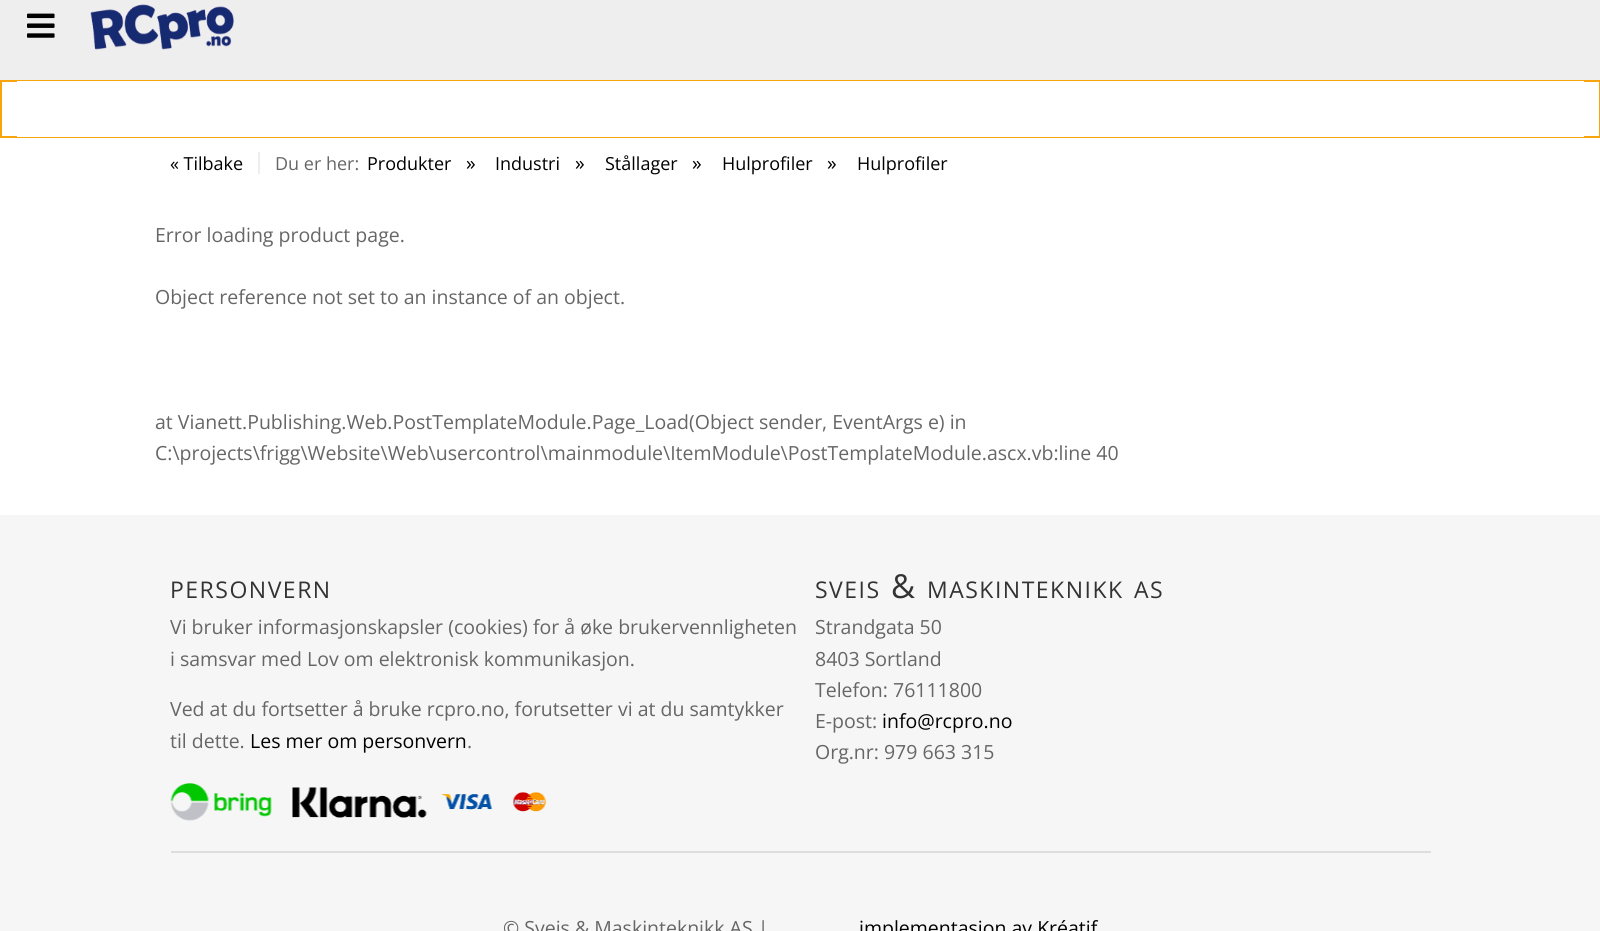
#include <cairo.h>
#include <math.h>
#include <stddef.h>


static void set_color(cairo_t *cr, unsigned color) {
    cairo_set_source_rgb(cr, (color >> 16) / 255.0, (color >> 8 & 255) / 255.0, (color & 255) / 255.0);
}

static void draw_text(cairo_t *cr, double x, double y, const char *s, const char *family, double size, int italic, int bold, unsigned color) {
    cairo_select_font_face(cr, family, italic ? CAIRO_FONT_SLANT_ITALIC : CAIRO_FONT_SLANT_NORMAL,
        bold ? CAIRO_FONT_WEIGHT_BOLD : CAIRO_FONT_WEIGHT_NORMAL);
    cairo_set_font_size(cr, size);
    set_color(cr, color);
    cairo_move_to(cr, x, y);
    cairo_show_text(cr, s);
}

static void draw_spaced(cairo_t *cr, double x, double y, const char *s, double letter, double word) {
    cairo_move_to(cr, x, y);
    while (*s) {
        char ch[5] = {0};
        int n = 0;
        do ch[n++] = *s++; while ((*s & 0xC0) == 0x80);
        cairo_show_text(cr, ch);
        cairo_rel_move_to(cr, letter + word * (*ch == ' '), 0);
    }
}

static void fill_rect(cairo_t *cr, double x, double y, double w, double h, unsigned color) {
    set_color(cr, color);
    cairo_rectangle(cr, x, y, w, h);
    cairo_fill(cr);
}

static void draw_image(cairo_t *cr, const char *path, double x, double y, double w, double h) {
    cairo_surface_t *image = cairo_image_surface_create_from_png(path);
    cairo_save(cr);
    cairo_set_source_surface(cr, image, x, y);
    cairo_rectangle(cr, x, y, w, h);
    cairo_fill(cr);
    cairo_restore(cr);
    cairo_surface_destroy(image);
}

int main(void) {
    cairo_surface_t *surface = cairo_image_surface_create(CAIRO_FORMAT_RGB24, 1600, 931);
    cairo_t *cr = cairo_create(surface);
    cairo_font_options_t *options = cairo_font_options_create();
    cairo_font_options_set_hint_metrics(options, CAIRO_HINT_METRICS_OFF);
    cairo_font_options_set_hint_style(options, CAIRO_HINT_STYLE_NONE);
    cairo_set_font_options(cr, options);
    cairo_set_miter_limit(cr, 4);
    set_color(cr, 0xFFFFFF);
    cairo_paint(cr);
    fill_rect(cr, 0, 0, 1600, 80, 0xEEEEEE);
    draw_image(cr, "assets/img1.png", 27, 13, 28, 25);
    draw_image(cr, "assets/img2.png", 90, 4, 144, 46);
    cairo_rectangle(cr, 1, 81, 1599, 56);
    set_color(cr, 0xF7A40F);
    cairo_stroke(cr);
    fill_rect(cr, 17, 81, 1567, 56, 0xFFFFFF);
    draw_text(cr, 170, 170, "« Tilbake", "Open Sans", 18, 0, 0, 0x000000);
    fill_rect(cr, 258, 152, 2, 22, 0xEEEEEE);
    draw_text(cr, 275, 170, "Du er her:", "Open Sans", 18, 0, 0, 0x666666);
    draw_text(cr, 367, 170, "Produkter", "Open Sans", 18, 0, 0, 0x000000);
    draw_text(cr, 466, 170, "»", "Open Sans", 19.5, 0, 0, 0x000000);
    draw_text(cr, 495, 170, "Industri", "Open Sans", 18, 0, 0, 0x000000);
    draw_text(cr, 575, 170, "»", "Open Sans", 19.5, 0, 0, 0x000000);
    draw_text(cr, 605, 170, "Stållager", "Open Sans", 18, 0, 0, 0x000000);
    draw_text(cr, 692, 170, "»", "Open Sans", 19.5, 0, 0, 0x000000);
    draw_text(cr, 722, 170, "Hulprofiler", "Open Sans", 18, 0, 0, 0x000000);
    draw_text(cr, 827, 170, "»", "Open Sans", 19.5, 0, 0, 0x000000);
    draw_text(cr, 857, 170, "Hulprofiler", "Open Sans", 18, 0, 0, 0x000000);
    draw_text(cr, 155, 242, "Error loading product page.", "Open Sans", 19.5, 0, 0, 0x666666);
    draw_text(cr, 155, 304, "Object reference not set to an instance of an object.", "Open Sans", 19.5, 0, 0, 0x666666);
    draw_text(cr, 155, 429, "at Vianett.Publishing.Web.PostTemplateModule.Page_Load(Object sender, EventArgs e) in", "Open Sans", 19.5, 0, 0, 0x666666);
    draw_text(cr, 155, 460, "C:\\projects\\frigg\\Website\\Web\\usercontrol\\mainmodule\\ItemModule\\PostTemplateModule.ascx.vb:line 40", "Open Sans", 19.5, 0, 0, 0x666666);
    fill_rect(cr, 0, 515, 1600, 416, 0xF6F6F6);
    cairo_set_font_size(cr, 23);
    set_color(cr, 0x333333);
    draw_spaced(cr, 170, 598, "PERSONVERN", 1.5, 0);
    draw_text(cr, 170, 634, "Vi bruker informasjonskapsler (cookies) for å øke brukervennligheten", "Open Sans", 19.5, 0, 0, 0x666666);
    draw_text(cr, 170, 666, "i samsvar med Lov om elektronisk kommunikasjon.", "Open Sans", 19.5, 0, 0, 0x666666);
    draw_text(cr, 170, 716, "Ved at du fortsetter å bruke rcpro.no, forutsetter vi at du samtykker", "Open Sans", 19.5, 0, 0, 0x666666);
    draw_text(cr, 170, 748, "til dette.", "Open Sans", 19.5, 0, 0, 0x666666);
    draw_text(cr, 250, 748, "Les mer om personvern", "Open Sans", 19.5, 0, 0, 0x000000);
    draw_text(cr, 467, 748, ".", "Open Sans", 19.5, 0, 0, 0x666666);
    draw_image(cr, "assets/img3.png", 170, 783, 102, 38);
    draw_image(cr, "assets/img4.png", 292, 787, 135, 31);
    draw_image(cr, "assets/img5.png", 441, 794, 52, 16);
    draw_image(cr, "assets/img6.png", 513, 792, 34, 20);
    cairo_set_font_size(cr, 23);
    set_color(cr, 0x333333);
    draw_spaced(cr, 815, 598, "SVEIS", 1.5, 0);
    cairo_set_font_size(cr, 33);
    draw_spaced(cr, 891, 598, "&", 1.5, 0);
    cairo_set_font_size(cr, 23);
    draw_spaced(cr, 927, 598, "MASKINTEKNIKK", 1.5, 0);
    draw_spaced(cr, 1134, 598, "AS", 1.5, 0);
    draw_text(cr, 815, 634, "Strandgata 50", "Open Sans", 19.5, 0, 0, 0x666666);
    draw_text(cr, 815, 666, "8403 Sortland", "Open Sans", 19.5, 0, 0, 0x666666);
    draw_text(cr, 815, 697, "Telefon: 76111800", "Open Sans", 19.5, 0, 0, 0x666666);
    draw_text(cr, 815, 728, "E-post:", "Open Sans", 19.5, 0, 0, 0x666666);
    draw_text(cr, 882, 728, "info@rcpro.no", "Open Sans", 19.5, 0, 0, 0x000000);
    draw_text(cr, 815, 759, "Org.nr: 979 663 315", "Open Sans", 19.5, 0, 0, 0x666666);
    fill_rect(cr, 171, 851, 1260, 2, 0xDDDDDD);
    draw_text(cr, 503, 935, "© Sveis & Maskinteknikk AS |", "Open Sans", 19.5, 0, 0, 0x666666);
    draw_text(cr, 859, 935, "implementasjon av Kréatif", "Open Sans", 19.5, 0, 0, 0x000000);
    cairo_surface_write_to_png(surface, "output.png");
    cairo_font_options_destroy(options);
    cairo_destroy(cr);
    cairo_surface_destroy(surface);
    return 0;
}
